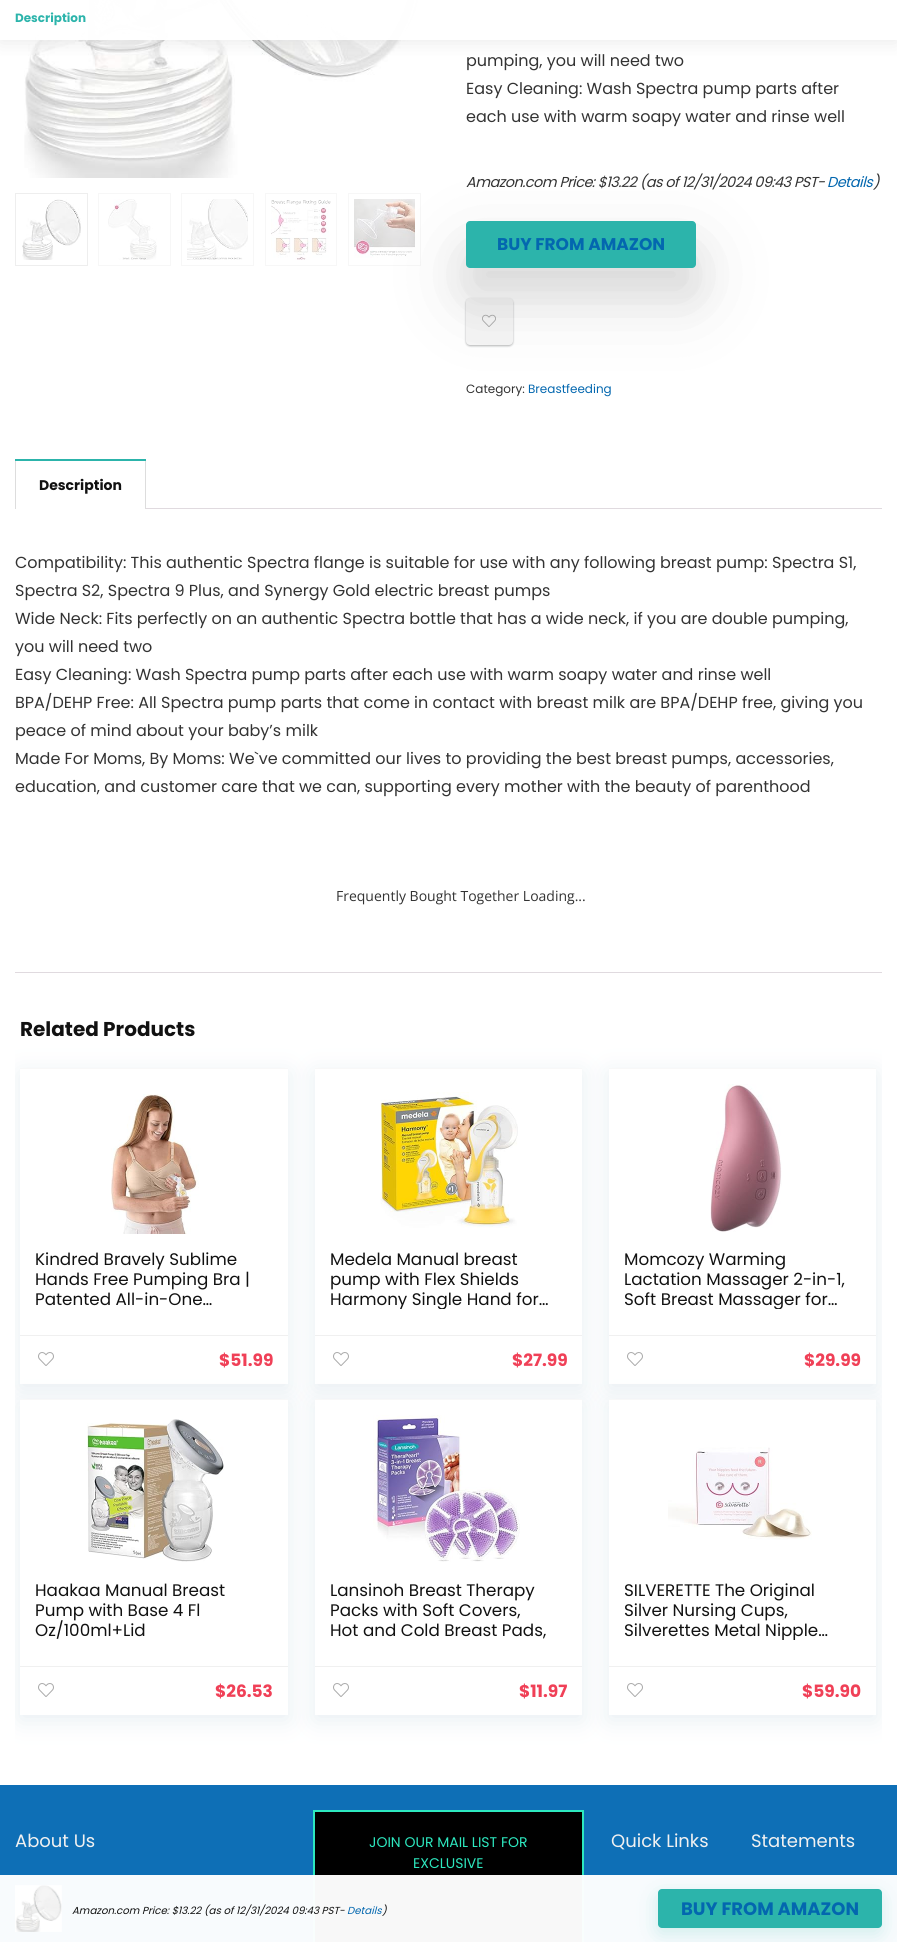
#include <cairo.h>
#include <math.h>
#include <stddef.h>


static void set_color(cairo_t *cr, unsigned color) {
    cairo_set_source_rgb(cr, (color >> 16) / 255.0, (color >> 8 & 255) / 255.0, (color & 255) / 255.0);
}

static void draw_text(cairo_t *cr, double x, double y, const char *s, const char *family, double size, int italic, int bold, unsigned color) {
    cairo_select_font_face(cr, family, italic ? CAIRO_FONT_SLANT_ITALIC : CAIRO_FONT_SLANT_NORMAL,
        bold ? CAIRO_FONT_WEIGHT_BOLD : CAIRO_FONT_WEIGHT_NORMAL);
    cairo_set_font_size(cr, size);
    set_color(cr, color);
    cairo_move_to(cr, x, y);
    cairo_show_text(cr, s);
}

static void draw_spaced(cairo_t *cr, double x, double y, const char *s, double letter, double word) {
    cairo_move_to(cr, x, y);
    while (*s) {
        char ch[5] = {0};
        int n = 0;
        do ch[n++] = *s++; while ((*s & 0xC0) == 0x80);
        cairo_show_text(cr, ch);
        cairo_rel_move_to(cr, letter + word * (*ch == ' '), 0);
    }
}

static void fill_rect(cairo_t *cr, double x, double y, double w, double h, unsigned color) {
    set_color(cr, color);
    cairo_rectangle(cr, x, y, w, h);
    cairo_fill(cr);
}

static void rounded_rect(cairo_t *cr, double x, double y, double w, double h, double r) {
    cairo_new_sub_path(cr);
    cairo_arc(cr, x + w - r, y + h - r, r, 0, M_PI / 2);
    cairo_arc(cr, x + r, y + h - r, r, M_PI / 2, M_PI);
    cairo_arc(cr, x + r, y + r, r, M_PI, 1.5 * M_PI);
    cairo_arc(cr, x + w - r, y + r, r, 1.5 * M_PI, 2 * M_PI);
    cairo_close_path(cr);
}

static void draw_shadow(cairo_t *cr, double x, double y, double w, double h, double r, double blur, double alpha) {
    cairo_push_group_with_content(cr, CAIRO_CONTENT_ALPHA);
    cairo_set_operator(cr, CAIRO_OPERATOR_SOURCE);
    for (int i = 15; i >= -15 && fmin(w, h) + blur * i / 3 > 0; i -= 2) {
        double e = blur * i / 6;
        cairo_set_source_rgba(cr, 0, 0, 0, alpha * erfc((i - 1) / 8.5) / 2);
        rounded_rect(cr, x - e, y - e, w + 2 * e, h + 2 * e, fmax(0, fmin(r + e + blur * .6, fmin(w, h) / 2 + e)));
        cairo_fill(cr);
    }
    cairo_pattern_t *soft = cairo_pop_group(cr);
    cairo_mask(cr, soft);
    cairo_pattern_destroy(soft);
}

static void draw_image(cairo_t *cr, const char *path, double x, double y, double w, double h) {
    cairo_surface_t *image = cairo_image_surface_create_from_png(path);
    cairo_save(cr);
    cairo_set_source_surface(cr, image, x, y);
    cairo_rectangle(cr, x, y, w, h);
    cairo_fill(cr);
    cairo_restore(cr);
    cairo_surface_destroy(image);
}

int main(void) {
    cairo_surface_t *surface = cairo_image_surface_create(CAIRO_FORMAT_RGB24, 897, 1942);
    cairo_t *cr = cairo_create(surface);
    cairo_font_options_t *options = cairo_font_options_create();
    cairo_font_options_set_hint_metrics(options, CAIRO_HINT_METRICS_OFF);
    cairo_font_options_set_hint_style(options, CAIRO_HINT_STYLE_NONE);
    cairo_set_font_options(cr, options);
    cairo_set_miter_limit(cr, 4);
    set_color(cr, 0xFFFFFF);
    cairo_paint(cr);
    draw_image(cr, "assets/img1.png", 24, 0, 395, 178);
    cairo_save(cr);
    cairo_rectangle(cr, 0, 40, 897, 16);
    cairo_clip(cr);
    set_color(cr, 0xBBBBBB);
    draw_shadow(cr, 0, 0, 897, 40, 0, 10, 0.36);
    cairo_restore(cr);
    cairo_set_source_rgba(cr, 1, 1, 1, 0.97);
    cairo_rectangle(cr, 39, 0, 380, 40);
    cairo_fill(cr);
    draw_text(cr, 15, 22, "Description", "Poppins", 12, 0, 1, 0x2CB4AB);
    cairo_rectangle(cr, 15.5, 193.5, 72, 72);
    set_color(cr, 0xEEEEEE);
    cairo_set_line_width(cr, 1);
    cairo_stroke(cr);
    draw_image(cr, "assets/img2.png", 22, 199, 59, 61);
    cairo_rectangle(cr, 98.5, 193.5, 72, 72);
    set_color(cr, 0xF7F7F7);
    cairo_stroke(cr);
    draw_image(cr, "assets/img3.png", 108, 199, 49, 61);
    cairo_rectangle(cr, 181.5, 193.5, 72, 72);
    cairo_stroke(cr);
    draw_image(cr, "assets/img4.png", 187, 199, 61, 61);
    cairo_rectangle(cr, 265.5, 193.5, 71, 72);
    cairo_stroke(cr);
    draw_image(cr, "assets/img5.png", 271, 200, 60, 60);
    cairo_rectangle(cr, 348.5, 193.5, 72, 72);
    cairo_stroke(cr);
    draw_image(cr, "assets/img6.png", 354, 199, 61, 59);
    draw_text(cr, 466, 66, "pumping, you will need two", "Poppins", 16, 0, 0, 0x333333);
    draw_text(cr, 466, 94, "Easy Cleaning: Wash Spectra pump parts after", "Poppins", 16, 0, 0, 0x333333);
    draw_text(cr, 466, 122, "each use with warm soapy water and rinse well", "Poppins", 16, 0, 0, 0x333333);
    cairo_select_font_face(cr, "Poppins", CAIRO_FONT_SLANT_ITALIC, CAIRO_FONT_WEIGHT_NORMAL);
    cairo_set_font_size(cr, 14.4);
    draw_spaced(cr, 466, 187, "Amazon.com Price: $13.22 (as of 12/31/2024 09:43 PST-", -0.5, 0);
    set_color(cr, 0x0367AF);
    draw_spaced(cr, 827, 187, "Details", -0.5, 0);
    set_color(cr, 0x333333);
    draw_spaced(cr, 873, 187, ")", -0.5, 0);
    set_color(cr, 0x000000);
    draw_shadow(cr, 466, 299, 47, 47, 4, 1, 0.08);
    set_color(cr, 0x3C4043);
    draw_shadow(cr, 466, 299, 47, 47, 4, 1, 0.3);
    set_color(cr, 0xF6F6F6);
    rounded_rect(cr, 466, 298, 47, 47, 4);
    cairo_fill(cr);
    draw_image(cr, "assets/img7.png", 482, 314, 14, 13);
    set_color(cr, 0x000000);
    draw_shadow(cr, 466, 251, 230, 47, 4, 40, 0.12);
    draw_shadow(cr, 466, 249, 230, 47, 4, 19, 0.06);
    set_color(cr, 0x2CB4AB);
    rounded_rect(cr, 466, 221, 230, 47, 4);
    cairo_fill(cr);
    draw_text(cr, 497, 250, "BUY FROM AMAZON", "Poppins", 17, 0, 1, 0x0367AF);
    draw_text(cr, 466, 393, "Category:", "Poppins", 12, 0, 0, 0x333333);
    draw_text(cr, 528, 393, "Breastfeeding", "Poppins", 12, 0, 0, 0x0367AF);
    fill_rect(cr, 15, 459, 131, 2, 0x2CB4AB);
    fill_rect(cr, 145, 461, 1, 48, 0xDDDDDD);
    fill_rect(cr, 15, 461, 1, 48, 0xDDDDDD);
    draw_text(cr, 39, 490, "Description", "Poppins", 14, 0, 1, 0x111111);
    fill_rect(cr, 146, 508, 736, 1, 0xE0DADF);
    fill_rect(cr, 15, 972, 867, 1, 0xE0DADF);
    draw_text(cr, 15, 568, "Compatibility: This authentic Spectra flange is suitable for use with any following breast pump: Spectra S1,", "Poppins", 16, 0, 0, 0x333333);
    draw_text(cr, 15, 596, "Spectra S2, Spectra 9 Plus, and Synergy Gold electric breast pumps", "Poppins", 16, 0, 0, 0x333333);
    draw_text(cr, 15, 624, "Wide Neck: Fits perfectly on an authentic Spectra bottle that has a wide neck, if you are double pumping,", "Poppins", 16, 0, 0, 0x333333);
    draw_text(cr, 15, 652, "you will need two", "Poppins", 16, 0, 0, 0x333333);
    draw_text(cr, 15, 680, "Easy Cleaning: Wash Spectra pump parts after each use with warm soapy water and rinse well", "Poppins", 16, 0, 0, 0x333333);
    draw_text(cr, 15, 708, "BPA/DEHP Free: All Spectra pump parts that come in contact with breast milk are BPA/DEHP free, giving you", "Poppins", 16, 0, 0, 0x333333);
    draw_text(cr, 15, 736, "peace of mind about your baby’s milk", "Poppins", 16, 0, 0, 0x333333);
    draw_text(cr, 15, 764, "Made For Moms, By Moms: We`ve committed our lives to providing the best breast pumps, accessories,", "Poppins", 16, 0, 0, 0x333333);
    draw_text(cr, 15, 792, "education, and customer care that we can, supporting every mother with the beauty of parenthood", "Poppins", 16, 0, 0, 0x333333);
    draw_text(cr, 336, 901, "Frequently Bought Together Loading...", "Open Sans", 14, 0, 0, 0x333333);
    draw_text(cr, 20, 1036, "Related Products", "Poppins", 20, 0, 1, 0x111111);
    cairo_save(cr);
    cairo_rectangle(cr, 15, 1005, 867, 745);
    cairo_clip(cr);
    cairo_set_fill_rule(cr, CAIRO_FILL_RULE_EVEN_ODD);
    cairo_new_path(cr);
    cairo_move_to(cr, 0, 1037);
    cairo_line_to(cr, 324, 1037);
    cairo_line_to(cr, 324, 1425);
    cairo_line_to(cr, 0, 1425);
    cairo_close_path(cr);
    cairo_move_to(cr, 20, 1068);
    cairo_line_to(cr, 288, 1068);
    cairo_line_to(cr, 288, 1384);
    cairo_line_to(cr, 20, 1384);
    cairo_close_path(cr);
    cairo_clip(cr);
    set_color(cr, 0xBCCFDB);
    draw_shadow(cr, 20, 1073, 268, 316, 0, 11.5, 0.35);
    cairo_restore(cr);
    fill_rect(cr, 20, 1068, 268, 1, 0xF8F8F8);
    draw_image(cr, "assets/img8.png", 111, 1094, 88, 140);
    draw_text(cr, 35, 1265, "Kindred Bravely Sublime", "Poppins", 16.75, 0, 0, 0x111111);
    draw_text(cr, 35, 1285, "Hands Free Pumping Bra |", "Poppins", 16.75, 0, 0, 0x111111);
    draw_text(cr, 35, 1305, "Patented All-in-One…", "Poppins", 16.75, 0, 0, 0x111111);
    fill_rect(cr, 20, 1335, 268, 1, 0xF0F0F0);
    draw_image(cr, "assets/img9.png", 38, 1352, 16, 14);
    draw_text(cr, 219, 1366, "$51.99", "Poppins", 17, 0, 1, 0xF04057);
    cairo_save(cr);
    cairo_set_fill_rule(cr, CAIRO_FILL_RULE_EVEN_ODD);
    cairo_new_path(cr);
    cairo_move_to(cr, 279, 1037);
    cairo_line_to(cr, 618, 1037);
    cairo_line_to(cr, 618, 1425);
    cairo_line_to(cr, 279, 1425);
    cairo_close_path(cr);
    cairo_move_to(cr, 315, 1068);
    cairo_line_to(cr, 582, 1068);
    cairo_line_to(cr, 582, 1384);
    cairo_line_to(cr, 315, 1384);
    cairo_close_path(cr);
    cairo_clip(cr);
    set_color(cr, 0xBCCFDB);
    draw_shadow(cr, 315, 1073, 267, 316, 0, 11.5, 0.35);
    cairo_restore(cr);
    fill_rect(cr, 315, 1068, 267, 1, 0xF8F8F8);
    draw_image(cr, "assets/img10.png", 380, 1092, 138, 136);
    draw_text(cr, 330, 1265, "Medela Manual breast", "Poppins", 16.75, 0, 0, 0x111111);
    draw_text(cr, 330, 1285, "pump with Flex Shields", "Poppins", 16.75, 0, 0, 0x111111);
    cairo_save(cr);
    cairo_rectangle(cr, 330, 1249, 222, 60);
    cairo_clip(cr);
    draw_text(cr, 330, 1305, "Harmony Single Hand for…", "Poppins", 16.75, 0, 0, 0x111111);
    cairo_restore(cr);
    fill_rect(cr, 315, 1335, 267, 1, 0xF0F0F0);
    draw_image(cr, "assets/img9.png", 333, 1352, 16, 14);
    draw_text(cr, 512, 1366, "$27.99", "Poppins", 17, 0, 1, 0xF04057);
    cairo_save(cr);
    cairo_rectangle(cr, 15, 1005, 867, 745);
    cairo_clip(cr);
    cairo_set_fill_rule(cr, CAIRO_FILL_RULE_EVEN_ODD);
    cairo_new_path(cr);
    cairo_move_to(cr, 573, 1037);
    cairo_line_to(cr, 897, 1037);
    cairo_line_to(cr, 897, 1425);
    cairo_line_to(cr, 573, 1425);
    cairo_close_path(cr);
    cairo_move_to(cr, 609, 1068);
    cairo_line_to(cr, 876, 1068);
    cairo_line_to(cr, 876, 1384);
    cairo_line_to(cr, 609, 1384);
    cairo_close_path(cr);
    cairo_clip(cr);
    set_color(cr, 0xBCCFDB);
    draw_shadow(cr, 609, 1073, 267, 316, 0, 11.5, 0.35);
    cairo_restore(cr);
    fill_rect(cr, 609, 1068, 267, 1, 0xF8F8F8);
    draw_image(cr, "assets/img11.png", 710, 1084, 72, 148);
    draw_text(cr, 624, 1265, "Momcozy Warming", "Poppins", 16.75, 0, 0, 0x111111);
    draw_text(cr, 624, 1285, "Lactation Massager 2-in-1,", "Poppins", 16.75, 0, 0, 0x111111);
    cairo_save(cr);
    cairo_rectangle(cr, 624, 1249, 222, 60);
    cairo_clip(cr);
    draw_text(cr, 624, 1305, "Soft Breast Massager for…", "Poppins", 16.75, 0, 0, 0x111111);
    cairo_restore(cr);
    fill_rect(cr, 609, 1335, 267, 1, 0xF0F0F0);
    draw_image(cr, "assets/img9.png", 627, 1352, 16, 14);
    draw_text(cr, 804, 1366, "$29.99", "Poppins", 17, 0, 1, 0xF04057);
    cairo_save(cr);
    cairo_rectangle(cr, 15, 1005, 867, 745);
    cairo_clip(cr);
    set_color(cr, 0xBCCFDB);
    draw_shadow(cr, 20, 1404, 268, 316, 0, 11.5, 0.35);
    cairo_restore(cr);
    fill_rect(cr, 20, 1400, 268, 315, 0xFFFFFF);
    fill_rect(cr, 20, 1399, 268, 1, 0xF8F8F8);
    draw_image(cr, "assets/img12.png", 87, 1419, 137, 143);
    draw_text(cr, 35, 1596, "Haakaa Manual Breast", "Poppins", 16.75, 0, 0, 0x111111);
    draw_text(cr, 35, 1616, "Pump with Base 4 Fl", "Poppins", 16.75, 0, 0, 0x111111);
    draw_text(cr, 35, 1636, "Oz/100ml+Lid", "Poppins", 16.75, 0, 0, 0x111111);
    fill_rect(cr, 20, 1666, 268, 1, 0xF0F0F0);
    draw_image(cr, "assets/img9.png", 38, 1683, 16, 14);
    draw_text(cr, 215, 1697, "$26.53", "Poppins", 17, 0, 1, 0xF04057);
    set_color(cr, 0xBCCFDB);
    draw_shadow(cr, 315, 1404, 267, 316, 0, 11.5, 0.35);
    fill_rect(cr, 315, 1400, 267, 315, 0xFFFFFF);
    fill_rect(cr, 315, 1399, 267, 1, 0xF8F8F8);
    draw_image(cr, "assets/img13.png", 373, 1415, 147, 147);
    draw_text(cr, 330, 1596, "Lansinoh Breast Therapy", "Poppins", 16.75, 0, 0, 0x111111);
    draw_text(cr, 330, 1616, "Packs with Soft Covers,", "Poppins", 16.75, 0, 0, 0x111111);
    draw_text(cr, 330, 1636, "Hot and Cold Breast Pads,", "Poppins", 16.75, 0, 0, 0x111111);
    fill_rect(cr, 315, 1666, 267, 1, 0xF0F0F0);
    draw_image(cr, "assets/img9.png", 333, 1683, 16, 14);
    draw_text(cr, 519, 1697, "$11.97", "Poppins", 17, 0, 1, 0xF04057);
    cairo_save(cr);
    cairo_rectangle(cr, 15, 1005, 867, 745);
    cairo_clip(cr);
    set_color(cr, 0xBCCFDB);
    draw_shadow(cr, 609, 1404, 267, 316, 0, 11.5, 0.35);
    cairo_restore(cr);
    fill_rect(cr, 609, 1400, 267, 315, 0xFFFFFF);
    fill_rect(cr, 609, 1399, 267, 1, 0xF8F8F8);
    draw_image(cr, "assets/img14.png", 668, 1447, 144, 93);
    draw_text(cr, 624, 1596, "SILVERETTE The Original", "Poppins", 16.75, 0, 0, 0x111111);
    draw_text(cr, 624, 1616, "Silver Nursing Cups,", "Poppins", 16.75, 0, 0, 0x111111);
    cairo_save(cr);
    cairo_rectangle(cr, 624, 1580, 222, 60);
    cairo_clip(cr);
    draw_text(cr, 624, 1636, "Silverettes Metal Nipple…", "Poppins", 16.75, 0, 0, 0x111111);
    cairo_restore(cr);
    fill_rect(cr, 609, 1666, 267, 1, 0xF0F0F0);
    draw_image(cr, "assets/img9.png", 627, 1683, 16, 14);
    draw_text(cr, 802, 1697, "$59.90", "Poppins", 17, 0, 1, 0xF04057);
    fill_rect(cr, 0, 1785, 897, 157, 0x0E6FB6);
    set_color(cr, 0x000000);
    cairo_rectangle(cr, 314, 1811, 269, 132);
    cairo_fill_preserve(cr);
    set_color(cr, 0x2DE8BF);
    cairo_set_line_width(cr, 2);
    cairo_stroke(cr);
    cairo_set_source_rgba(cr, 1, 1, 1, 0.97);
    cairo_rectangle(cr, 0, 1875, 897, 67);
    cairo_fill(cr);
    draw_image(cr, "assets/img15.png", 15, 1885, 47, 47);
    draw_text(cr, 72, 1914, "Amazon.com Price: $13.22 (as of 12/31/2024 09:43 PST-", "Poppins", 10.2, 1, 0, 0x111111);
    draw_text(cr, 347, 1914, "Details", "Poppins", 10.2, 1, 0, 0x0367AF);
    draw_text(cr, 382, 1914, ")", "Poppins", 10.2, 1, 0, 0x111111);
    set_color(cr, 0x2CB4AB);
    draw_shadow(cr, 657, 1895, 224, 39, 4, 9.5, 0.2);
    set_color(cr, 0x2CB4AB);
    rounded_rect(cr, 658, 1889, 224, 39, 4);
    cairo_fill(cr);
    draw_text(cr, 681, 1915, "BUY FROM AMAZON", "Poppins", 18, 0, 1, 0x0367AF);
    draw_text(cr, 15, 1847, "About Us", "Poppins", 18, 0, 0, 0xF1F1F1);
    draw_text(cr, 369, 1847, "JOIN OUR MAIL LIST FOR", "Poppins", 14, 0, 0, 0x2DE8BF);
    draw_text(cr, 413, 1868, "EXCLUSIVE", "Poppins", 14, 0, 0, 0x2DE8BF);
    draw_text(cr, 611, 1847, "Quick Links", "Poppins", 18, 0, 0, 0xF1F1F1);
    draw_text(cr, 751, 1847, "Statements", "Poppins", 18, 0, 0, 0xF1F1F1);
    cairo_surface_write_to_png(surface, "output.png");
    cairo_font_options_destroy(options);
    cairo_destroy(cr);
    cairo_surface_destroy(surface);
    return 0;
}
